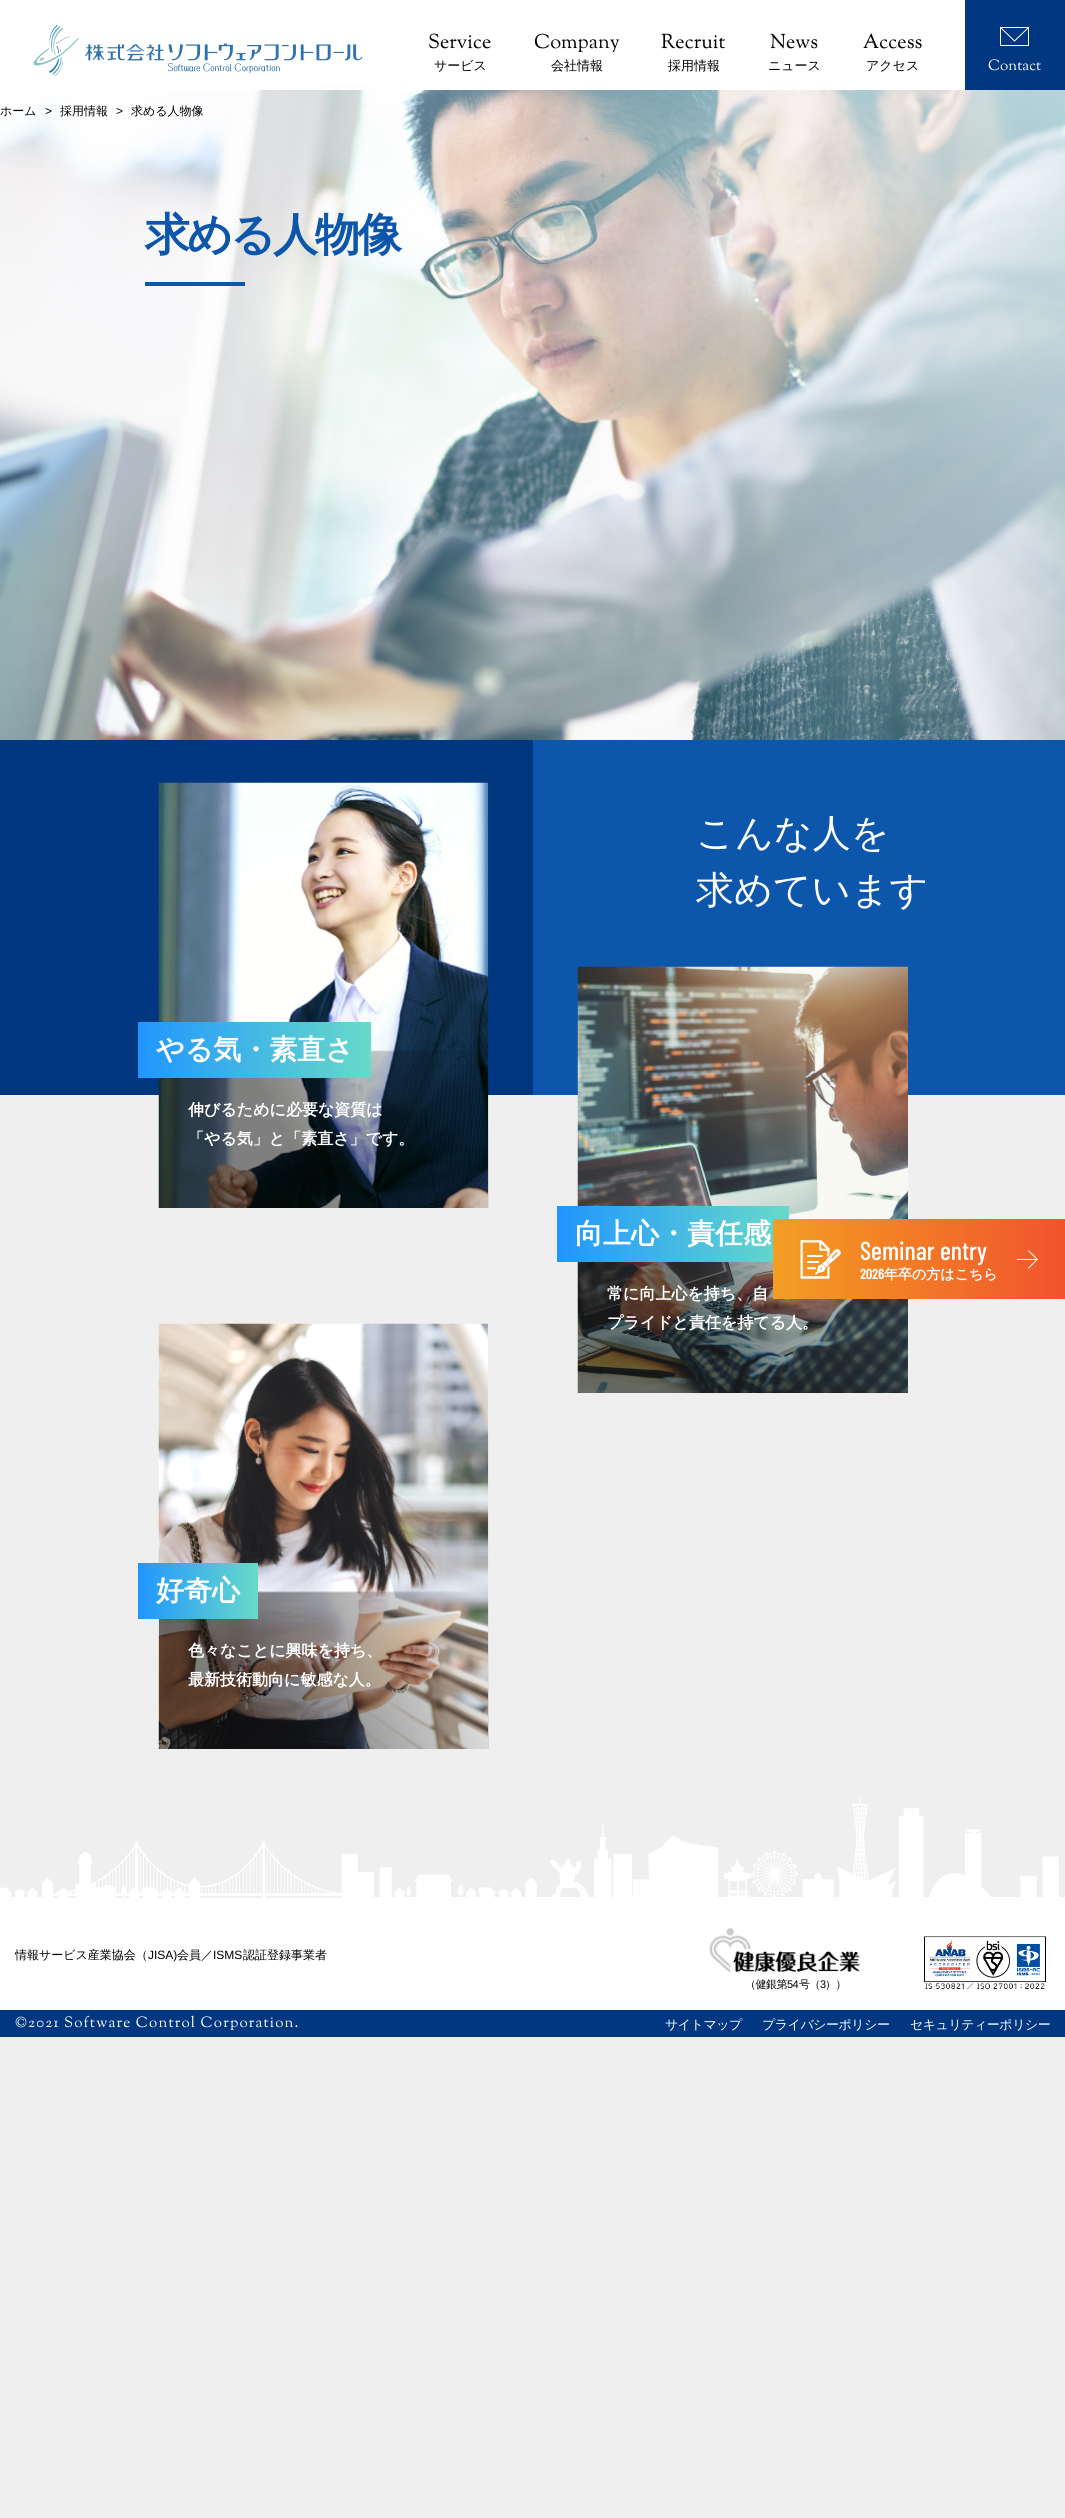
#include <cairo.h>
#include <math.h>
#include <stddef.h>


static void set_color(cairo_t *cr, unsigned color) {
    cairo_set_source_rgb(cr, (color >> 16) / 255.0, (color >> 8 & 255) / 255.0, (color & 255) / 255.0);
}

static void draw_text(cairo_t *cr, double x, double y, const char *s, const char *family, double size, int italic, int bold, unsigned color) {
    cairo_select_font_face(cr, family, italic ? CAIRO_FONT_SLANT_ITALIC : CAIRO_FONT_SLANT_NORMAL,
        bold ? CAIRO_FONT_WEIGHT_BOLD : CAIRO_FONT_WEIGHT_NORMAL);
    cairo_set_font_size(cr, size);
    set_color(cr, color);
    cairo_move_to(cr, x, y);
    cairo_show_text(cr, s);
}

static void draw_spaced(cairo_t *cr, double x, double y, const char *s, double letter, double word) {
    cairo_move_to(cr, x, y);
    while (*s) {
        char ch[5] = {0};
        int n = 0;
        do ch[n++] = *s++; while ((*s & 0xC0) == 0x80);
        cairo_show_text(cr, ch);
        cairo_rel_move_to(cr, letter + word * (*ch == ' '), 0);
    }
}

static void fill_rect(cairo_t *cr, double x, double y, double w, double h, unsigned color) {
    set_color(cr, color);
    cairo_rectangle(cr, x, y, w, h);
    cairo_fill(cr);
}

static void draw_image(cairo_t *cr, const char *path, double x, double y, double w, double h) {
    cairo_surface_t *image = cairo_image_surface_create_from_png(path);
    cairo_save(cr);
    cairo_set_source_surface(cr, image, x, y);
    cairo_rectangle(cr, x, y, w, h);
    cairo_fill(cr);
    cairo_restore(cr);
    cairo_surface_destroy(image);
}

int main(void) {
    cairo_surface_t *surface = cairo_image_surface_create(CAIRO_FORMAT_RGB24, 1065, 2518);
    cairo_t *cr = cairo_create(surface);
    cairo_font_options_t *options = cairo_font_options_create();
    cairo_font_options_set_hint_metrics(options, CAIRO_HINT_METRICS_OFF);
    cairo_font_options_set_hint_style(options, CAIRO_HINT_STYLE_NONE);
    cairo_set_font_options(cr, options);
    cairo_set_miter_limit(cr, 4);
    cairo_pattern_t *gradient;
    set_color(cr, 0xEFEFEF);
    cairo_paint(cr);
    fill_rect(cr, 0, 0, 965, 90, 0xFFFFFF);
    draw_image(cr, "assets/img1.png", 33, 25, 330, 51);
    draw_text(cr, 428, 48, "Service", "Sorts Mill Goudy", 20, 0, 0, 0x000000);
    draw_text(cr, 434, 70, "サービス", "WenQuanYi Zen Hei Medium", 13, 0, 0, 0x000000);
    draw_text(cr, 534, 48, "Company", "Sorts Mill Goudy", 20, 0, 0, 0x000000);
    draw_text(cr, 551, 70, "会社情報", "WenQuanYi Zen Hei Medium", 13, 0, 0, 0x000000);
    draw_text(cr, 661, 48, "Recruit", "Sorts Mill Goudy", 20, 0, 0, 0x000000);
    draw_text(cr, 668, 70, "採用情報", "WenQuanYi Zen Hei Medium", 13, 0, 0, 0x000000);
    draw_text(cr, 770, 48, "News", "Sorts Mill Goudy", 20, 0, 0, 0x000000);
    draw_text(cr, 768, 70, "ニュース", "WenQuanYi Zen Hei Medium", 13, 0, 0, 0x000000);
    draw_text(cr, 863, 48, "Access", "Sorts Mill Goudy", 20, 0, 0, 0x000000);
    draw_text(cr, 866, 70, "アクセス", "WenQuanYi Zen Hei Medium", 13, 0, 0, 0x000000);
    fill_rect(cr, 965, 0, 100, 90, 0x003780);
    cairo_new_path(cr);
    cairo_move_to(cr, 1000.5, 27.5);
    cairo_line_to(cr, 1028.5, 27.5);
    cairo_line_to(cr, 1028.5, 45.5);
    cairo_line_to(cr, 1000.5, 45.5);
    cairo_close_path(cr);
    cairo_move_to(cr, 1014.5, 41);
    cairo_line_to(cr, 1000.5, 27.5);
    cairo_line_to(cr, 1028.5, 27.5);
    cairo_close_path(cr);
    set_color(cr, 0xFFFFFF);
    cairo_set_line_width(cr, 1);
    cairo_set_line_cap(cr, CAIRO_LINE_CAP_ROUND);
    cairo_set_line_join(cr, CAIRO_LINE_JOIN_ROUND);
    cairo_stroke(cr);
    draw_text(cr, 988, 70, "Contact", "Sorts Mill Goudy", 15, 0, 0, 0xFFFFFF);
    draw_image(cr, "assets/img2.png", 0, 90, 1065, 650);
    draw_text(cr, 0, 115, "ホーム", "WenQuanYi Zen Hei Medium", 12, 0, 0, 0x000000);
    draw_text(cr, 45, 115, ">", "Liberation Sans", 12, 0, 0, 0x000000);
    draw_text(cr, 60, 115, "採用情報", "WenQuanYi Zen Hei Medium", 12, 0, 0, 0x000000);
    draw_text(cr, 116, 115, ">", "Liberation Sans", 12, 0, 0, 0x000000);
    draw_text(cr, 131, 115, "求める人物像", "WenQuanYi Zen Hei Medium", 12, 0, 0, 0x000000);
    cairo_select_font_face(cr, "WenQuanYi Zen Hei", CAIRO_FONT_SLANT_NORMAL, CAIRO_FONT_WEIGHT_BOLD);
    cairo_set_font_size(cr, 45);
    set_color(cr, 0x0C56AC);
    draw_spaced(cr, 145, 250, "求める人物像", -3, 0);
    fill_rect(cr, 145, 282, 100, 4, 0x0C56AC);
    fill_rect(cr, 0, 740, 533, 355, 0x003780);
    fill_rect(cr, 533, 740, 532, 355, 0x0C56AC);
    draw_text(cr, 696, 846, "こんな人を", "WenQuanYi Zen Hei Medium", 38, 0, 0, 0xFFFFFF);
    draw_text(cr, 696, 903, "求めています", "WenQuanYi Zen Hei Medium", 38, 0, 0, 0xFFFFFF);
    draw_image(cr, "assets/img3.png", 158, 782, 331, 426);
    gradient = cairo_pattern_create_linear(138, 1050, 371, 1050);
    cairo_pattern_add_color_stop_rgba(gradient, 0, 0.125, 0.588, 1, 1);
    cairo_pattern_add_color_stop_rgba(gradient, 1, 0.408, 0.855, 0.788, 1);
    cairo_set_source(cr, gradient);
    cairo_pattern_destroy(gradient);
    cairo_rectangle(cr, 138, 1022, 233, 56);
    cairo_fill(cr);
    draw_text(cr, 156, 1059, "やる気・素直さ", "WenQuanYi Zen Hei", 28, 0, 1, 0xFFFFFF);
    draw_text(cr, 188, 1115, "伸びるために必要な資質は", "WenQuanYi Zen Hei", 16, 0, 1, 0xFFFFFF);
    draw_text(cr, 188, 1144, "「やる気」と「素直さ」です。", "WenQuanYi Zen Hei", 16, 0, 1, 0xFFFFFF);
    draw_image(cr, "assets/img4.png", 577, 966, 331, 427);
    gradient = cairo_pattern_create_linear(557, 1234, 789, 1234);
    cairo_pattern_add_color_stop_rgba(gradient, 0, 0.125, 0.588, 1, 1);
    cairo_pattern_add_color_stop_rgba(gradient, 1, 0.408, 0.855, 0.788, 1);
    cairo_set_source(cr, gradient);
    cairo_pattern_destroy(gradient);
    cairo_rectangle(cr, 557, 1206, 232, 56);
    cairo_fill(cr);
    draw_text(cr, 575, 1243, "向上心・責任感", "WenQuanYi Zen Hei", 28, 0, 1, 0xFFFFFF);
    draw_text(cr, 607, 1299, "常に向上心を持ち、自", "WenQuanYi Zen Hei", 16, 0, 1, 0xFFFFFF);
    draw_text(cr, 607, 1328, "プライドと責任を持てる人。", "WenQuanYi Zen Hei", 16, 0, 1, 0xFFFFFF);
    draw_image(cr, "assets/img5.png", 158, 1323, 331, 426);
    gradient = cairo_pattern_create_linear(138, 1591, 258, 1591);
    cairo_pattern_add_color_stop_rgba(gradient, 0, 0.125, 0.588, 1, 1);
    cairo_pattern_add_color_stop_rgba(gradient, 1, 0.408, 0.855, 0.788, 1);
    cairo_set_source(cr, gradient);
    cairo_pattern_destroy(gradient);
    cairo_rectangle(cr, 138, 1563, 120, 56);
    cairo_fill(cr);
    draw_text(cr, 156, 1600, "好奇心", "WenQuanYi Zen Hei", 28, 0, 1, 0xFFFFFF);
    draw_text(cr, 188, 1656, "色々なことに興味を持ち、", "WenQuanYi Zen Hei", 16, 0, 1, 0xFFFFFF);
    draw_text(cr, 188, 1685, "最新技術動向に敏感な人。", "WenQuanYi Zen Hei", 16, 0, 1, 0xFFFFFF);
    gradient = cairo_pattern_create_linear(773, 1259, 1065, 1259);
    cairo_pattern_add_color_stop_rgba(gradient, 0, 0.953, 0.62, 0.137, 1);
    cairo_pattern_add_color_stop_rgba(gradient, 1, 0.949, 0.325, 0.173, 1);
    cairo_set_source(cr, gradient);
    cairo_pattern_destroy(gradient);
    cairo_rectangle(cr, 773, 1219, 292, 80);
    cairo_fill(cr);
    draw_image(cr, "assets/img6.png", 800, 1240, 41, 39);
    draw_text(cr, 860, 1260, "Seminar entry", "Barlow Condensed Medium", 26, 0, 0, 0xFFFFFF);
    draw_text(cr, 860, 1279, "2026", "Barlow Condensed", 14, 0, 1, 0xFFFFFF);
    draw_text(cr, 884, 1279, "年卒の方はこちら", "WenQuanYi Zen Hei", 14, 0, 1, 0xFFFFFF);
    draw_image(cr, "assets/img7.png", 1017, 1250, 21, 19);
    draw_image(cr, "assets/img8.png", 0, 1795, 1065, 105);
    fill_rect(cr, 0, 1900, 1065, 110, 0xFFFFFF);
    draw_text(cr, 15, 1959, "情報サービス産業協会（", "WenQuanYi Zen Hei Medium", 12, 0, 0, 0x000000);
    draw_text(cr, 148, 1959, "JISA)", "Liberation Sans", 12, 0, 0, 0x000000);
    draw_text(cr, 177, 1959, "会員／", "WenQuanYi Zen Hei Medium", 12, 0, 0, 0x000000);
    draw_text(cr, 213, 1959, "ISMS", "Liberation Sans", 12, 0, 0, 0x000000);
    draw_text(cr, 243, 1959, "認証登録事業者", "WenQuanYi Zen Hei Medium", 12, 0, 0, 0x000000);
    draw_image(cr, "assets/img9.png", 709, 1927, 152, 46);
    cairo_set_font_size(cr, 11);
    draw_spaced(cr, 745, 1988, "（健銀第", -0.5, 0);
    cairo_select_font_face(cr, "Liberation Sans", CAIRO_FONT_SLANT_NORMAL, CAIRO_FONT_WEIGHT_NORMAL);
    draw_spaced(cr, 787, 1988, "54", -0.5, 0);
    cairo_select_font_face(cr, "WenQuanYi Zen Hei Medium", CAIRO_FONT_SLANT_NORMAL, CAIRO_FONT_WEIGHT_NORMAL);
    draw_spaced(cr, 799, 1988, "号（", -0.5, 0);
    cairo_select_font_face(cr, "Liberation Sans", CAIRO_FONT_SLANT_NORMAL, CAIRO_FONT_WEIGHT_NORMAL);
    draw_spaced(cr, 820, 1988, "3", -0.5, 0);
    cairo_select_font_face(cr, "WenQuanYi Zen Hei Medium", CAIRO_FONT_SLANT_NORMAL, CAIRO_FONT_WEIGHT_NORMAL);
    draw_spaced(cr, 825, 1988, "））", -0.5, 0);
    draw_image(cr, "assets/img10.png", 924, 1936, 122, 54);
    fill_rect(cr, 0, 2010, 1065, 27, 0x003780);
    cairo_select_font_face(cr, "Sorts Mill Goudy", CAIRO_FONT_SLANT_NORMAL, CAIRO_FONT_WEIGHT_NORMAL);
    cairo_set_font_size(cr, 15);
    set_color(cr, 0xFFFFFF);
    draw_spaced(cr, 15, 2027, "©2021 Software Control Corporation.", 1.15, 0);
    cairo_select_font_face(cr, "WenQuanYi Zen Hei Medium", CAIRO_FONT_SLANT_NORMAL, CAIRO_FONT_WEIGHT_NORMAL);
    cairo_set_font_size(cr, 13);
    draw_spaced(cr, 665, 2029, "サイトマップ", -0.5, 0);
    draw_spaced(cr, 762, 2029, "プライバシーポリシー", -0.5, 0);
    draw_spaced(cr, 910, 2029, "セキュリティーポリシー", -0.5, 0);
    cairo_surface_write_to_png(surface, "output.png");
    cairo_font_options_destroy(options);
    cairo_destroy(cr);
    cairo_surface_destroy(surface);
    return 0;
}
